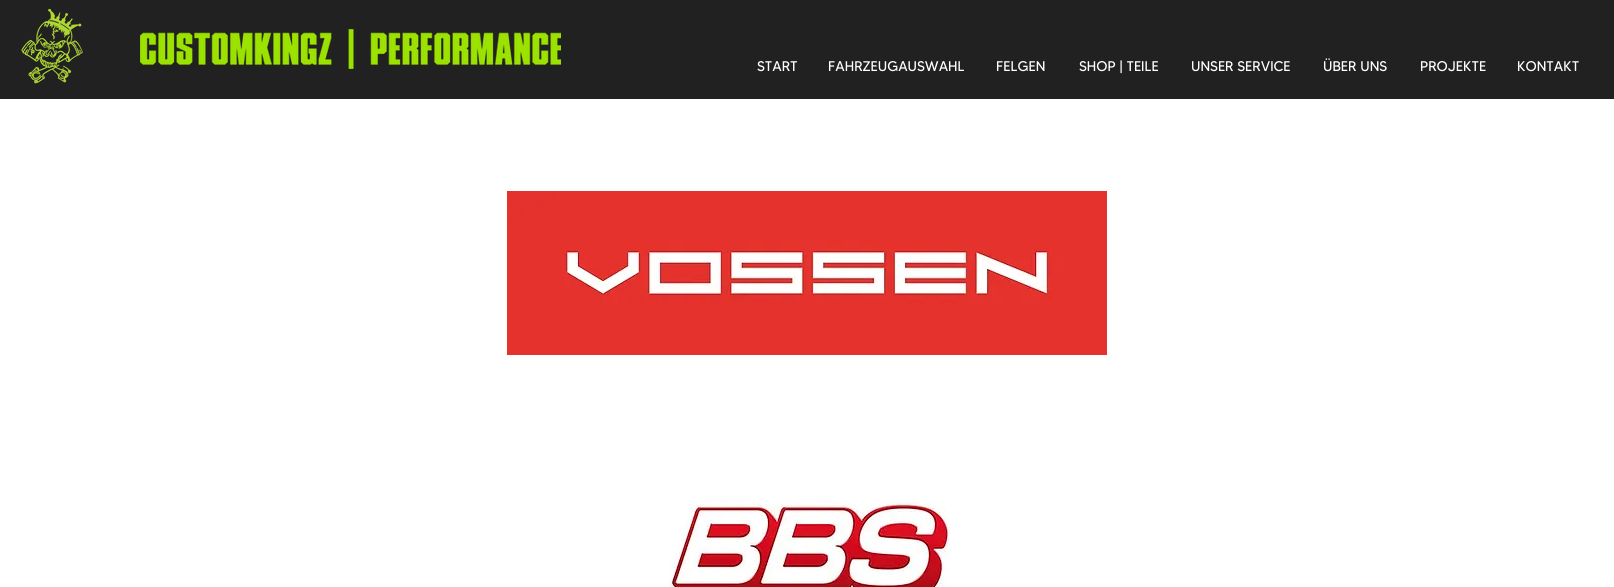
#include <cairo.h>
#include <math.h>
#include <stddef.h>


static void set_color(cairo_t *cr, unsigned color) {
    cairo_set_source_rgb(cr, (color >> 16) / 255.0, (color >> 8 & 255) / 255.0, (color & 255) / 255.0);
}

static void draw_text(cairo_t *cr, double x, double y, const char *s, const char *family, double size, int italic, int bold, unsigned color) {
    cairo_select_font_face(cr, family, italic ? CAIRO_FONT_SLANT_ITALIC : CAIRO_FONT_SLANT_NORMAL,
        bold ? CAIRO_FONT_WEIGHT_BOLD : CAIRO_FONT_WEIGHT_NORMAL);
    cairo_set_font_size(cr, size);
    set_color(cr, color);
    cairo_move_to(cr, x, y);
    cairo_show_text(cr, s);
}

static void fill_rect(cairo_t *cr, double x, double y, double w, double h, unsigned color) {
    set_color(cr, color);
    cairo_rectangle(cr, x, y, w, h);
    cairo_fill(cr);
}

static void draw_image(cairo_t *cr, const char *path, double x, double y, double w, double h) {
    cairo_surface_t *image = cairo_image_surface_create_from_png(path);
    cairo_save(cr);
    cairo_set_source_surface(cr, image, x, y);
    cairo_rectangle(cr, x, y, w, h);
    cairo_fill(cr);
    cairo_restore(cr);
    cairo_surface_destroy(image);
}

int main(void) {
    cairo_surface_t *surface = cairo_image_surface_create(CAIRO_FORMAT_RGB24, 1614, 587);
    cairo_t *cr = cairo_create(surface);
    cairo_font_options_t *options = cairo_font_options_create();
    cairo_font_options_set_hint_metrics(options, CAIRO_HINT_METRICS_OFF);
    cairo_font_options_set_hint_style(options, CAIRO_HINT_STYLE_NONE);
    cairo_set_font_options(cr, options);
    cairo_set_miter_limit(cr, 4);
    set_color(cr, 0xFFFFFF);
    cairo_paint(cr);
    fill_rect(cr, 0, 0, 1614, 99, 0x212121);
    draw_image(cr, "assets/img1.png", 21, 9, 62, 75);
    draw_image(cr, "assets/img2.png", 140, 29, 421, 40);
    draw_text(cr, 757, 71, "START", "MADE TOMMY", 14, 0, 0, 0xFFFFFF);
    draw_text(cr, 828, 71, "FAHRZEUGAUSWAHL", "MADE TOMMY", 14, 0, 0, 0xFFFFFF);
    draw_text(cr, 996, 71, "FELGEN", "MADE TOMMY", 14, 0, 0, 0xFFFFFF);
    draw_text(cr, 1079, 71, "SHOP | TEILE", "MADE TOMMY", 14, 0, 0, 0xFFFFFF);
    draw_text(cr, 1191, 71, "UNSER SERVICE", "MADE TOMMY", 14, 0, 0, 0xFFFFFF);
    draw_text(cr, 1323, 71, "ÜBER UNS", "MADE TOMMY", 14, 0, 0, 0xFFFFFF);
    draw_text(cr, 1420, 71, "PROJEKTE", "MADE TOMMY", 14, 0, 0, 0xFFFFFF);
    draw_text(cr, 1517, 71, "KONTAKT", "MADE TOMMY", 14, 0, 0, 0xFFFFFF);
    draw_image(cr, "assets/img3.png", 507, 191, 600, 164);
    draw_image(cr, "assets/img4.png", 667, 500, 283, 87);
    cairo_surface_write_to_png(surface, "output.png");
    cairo_font_options_destroy(options);
    cairo_destroy(cr);
    cairo_surface_destroy(surface);
    return 0;
}
